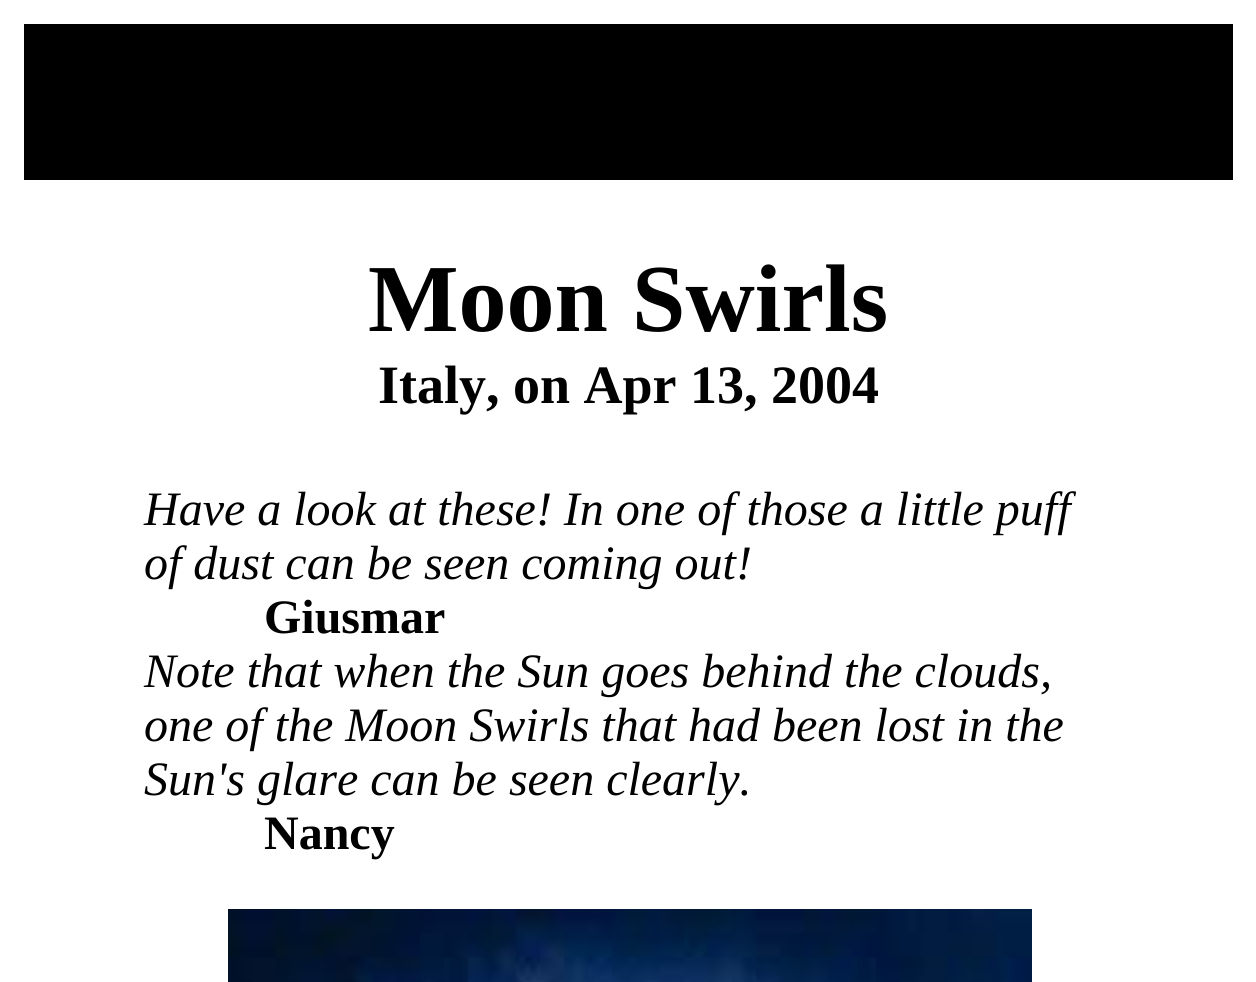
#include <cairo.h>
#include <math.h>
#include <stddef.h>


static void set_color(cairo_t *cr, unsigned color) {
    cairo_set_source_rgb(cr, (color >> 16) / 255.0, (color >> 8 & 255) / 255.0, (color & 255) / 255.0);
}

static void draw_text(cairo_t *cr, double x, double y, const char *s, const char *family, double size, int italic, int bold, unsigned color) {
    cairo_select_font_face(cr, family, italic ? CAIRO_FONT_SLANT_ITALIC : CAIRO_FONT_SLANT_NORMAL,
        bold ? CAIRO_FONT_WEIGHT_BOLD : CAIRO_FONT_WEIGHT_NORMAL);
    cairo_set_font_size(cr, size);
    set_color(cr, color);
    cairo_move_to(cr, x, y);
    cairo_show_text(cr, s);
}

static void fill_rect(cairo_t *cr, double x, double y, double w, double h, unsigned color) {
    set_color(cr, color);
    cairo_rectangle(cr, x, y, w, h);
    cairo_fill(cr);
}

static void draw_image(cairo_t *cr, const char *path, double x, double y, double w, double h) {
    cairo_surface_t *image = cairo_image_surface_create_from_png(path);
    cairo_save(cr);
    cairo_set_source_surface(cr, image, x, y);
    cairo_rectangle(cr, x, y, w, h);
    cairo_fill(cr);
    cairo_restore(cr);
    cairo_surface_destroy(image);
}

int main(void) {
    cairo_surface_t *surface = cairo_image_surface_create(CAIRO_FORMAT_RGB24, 1256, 982);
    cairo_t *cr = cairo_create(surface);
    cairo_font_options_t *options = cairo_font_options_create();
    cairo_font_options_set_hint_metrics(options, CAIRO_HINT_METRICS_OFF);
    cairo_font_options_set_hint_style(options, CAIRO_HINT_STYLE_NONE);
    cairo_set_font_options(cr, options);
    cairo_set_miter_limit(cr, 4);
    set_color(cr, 0xFFFFFF);
    cairo_paint(cr);
    fill_rect(cr, 24, 24, 1209, 156, 0x000000);
    draw_text(cr, 368, 331, "Moon Swirls", "Liberation Serif", 96, 0, 1, 0x000000);
    draw_text(cr, 378, 403, "Italy, on Apr 13, 2004", "Liberation Serif", 54, 0, 1, 0x000000);
    draw_text(cr, 144, 525, "Have a look at these! In one of those a little puff", "Liberation Serif", 48, 1, 0, 0x000000);
    draw_text(cr, 144, 579, "of dust can be seen coming out!", "Liberation Serif", 48, 1, 0, 0x000000);
    draw_text(cr, 264, 633, "Giusmar", "Liberation Serif", 48, 0, 1, 0x000000);
    draw_text(cr, 144, 687, "Note that when the Sun goes behind the clouds,", "Liberation Serif", 48, 1, 0, 0x000000);
    draw_text(cr, 144, 741, "one of the Moon Swirls that had been lost in the", "Liberation Serif", 48, 1, 0, 0x000000);
    draw_text(cr, 144, 795, "Sun's glare can be seen clearly.", "Liberation Serif", 48, 1, 0, 0x000000);
    draw_text(cr, 264, 849, "Nancy", "Liberation Serif", 48, 0, 1, 0x000000);
    draw_image(cr, "assets/img1.png", 228, 909, 804, 73);
    cairo_surface_write_to_png(surface, "output.png");
    cairo_font_options_destroy(options);
    cairo_destroy(cr);
    cairo_surface_destroy(surface);
    return 0;
}
